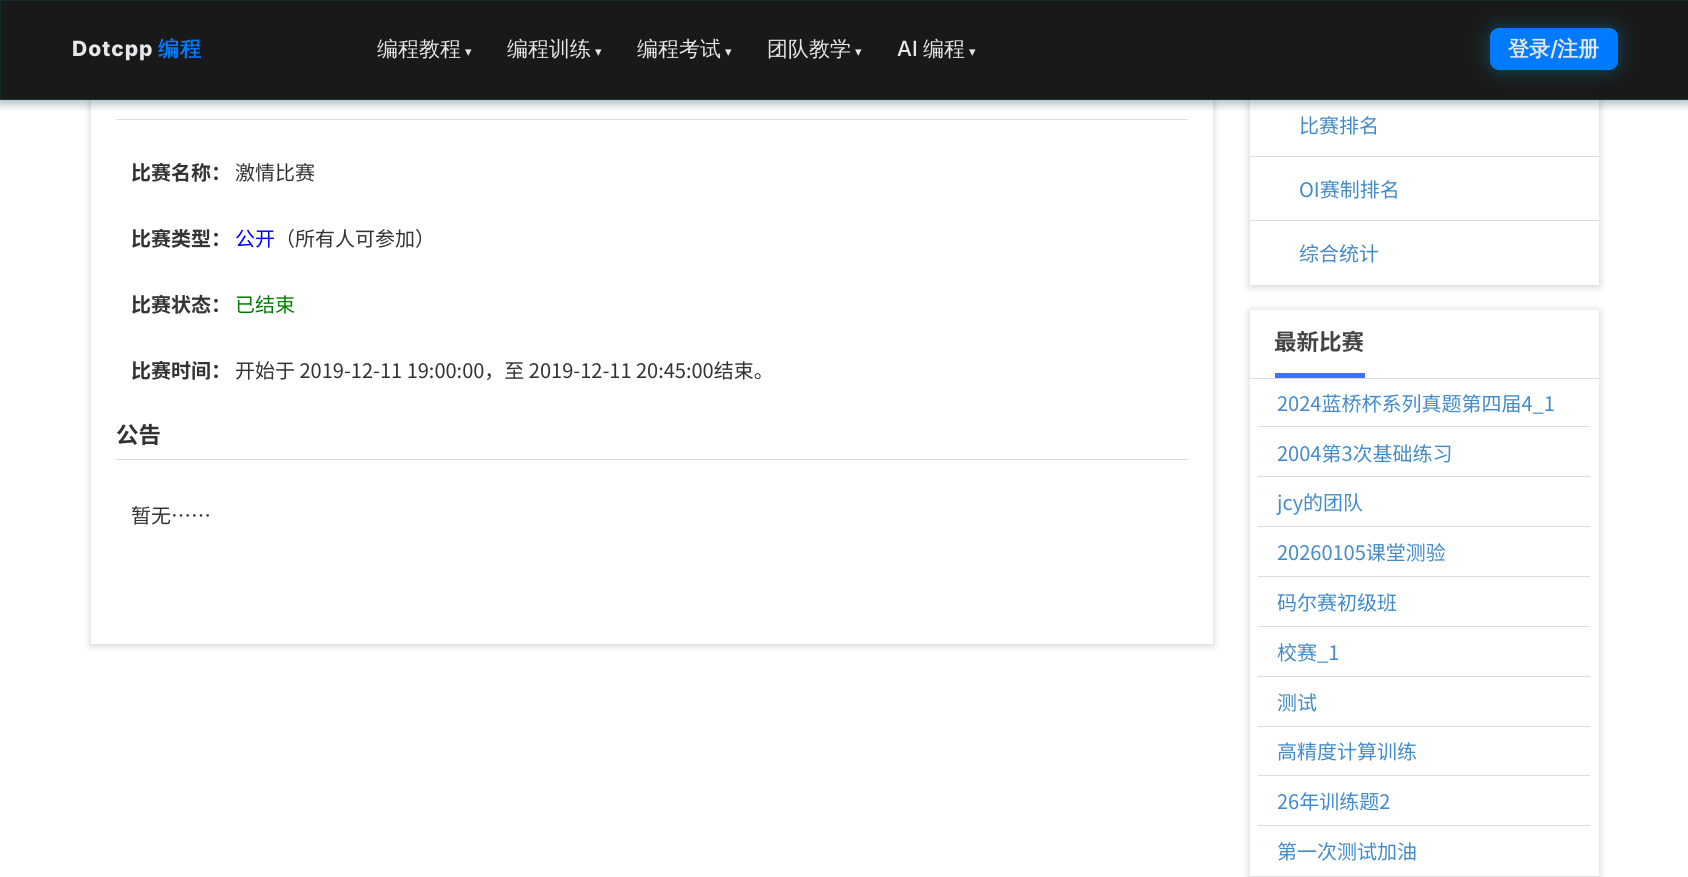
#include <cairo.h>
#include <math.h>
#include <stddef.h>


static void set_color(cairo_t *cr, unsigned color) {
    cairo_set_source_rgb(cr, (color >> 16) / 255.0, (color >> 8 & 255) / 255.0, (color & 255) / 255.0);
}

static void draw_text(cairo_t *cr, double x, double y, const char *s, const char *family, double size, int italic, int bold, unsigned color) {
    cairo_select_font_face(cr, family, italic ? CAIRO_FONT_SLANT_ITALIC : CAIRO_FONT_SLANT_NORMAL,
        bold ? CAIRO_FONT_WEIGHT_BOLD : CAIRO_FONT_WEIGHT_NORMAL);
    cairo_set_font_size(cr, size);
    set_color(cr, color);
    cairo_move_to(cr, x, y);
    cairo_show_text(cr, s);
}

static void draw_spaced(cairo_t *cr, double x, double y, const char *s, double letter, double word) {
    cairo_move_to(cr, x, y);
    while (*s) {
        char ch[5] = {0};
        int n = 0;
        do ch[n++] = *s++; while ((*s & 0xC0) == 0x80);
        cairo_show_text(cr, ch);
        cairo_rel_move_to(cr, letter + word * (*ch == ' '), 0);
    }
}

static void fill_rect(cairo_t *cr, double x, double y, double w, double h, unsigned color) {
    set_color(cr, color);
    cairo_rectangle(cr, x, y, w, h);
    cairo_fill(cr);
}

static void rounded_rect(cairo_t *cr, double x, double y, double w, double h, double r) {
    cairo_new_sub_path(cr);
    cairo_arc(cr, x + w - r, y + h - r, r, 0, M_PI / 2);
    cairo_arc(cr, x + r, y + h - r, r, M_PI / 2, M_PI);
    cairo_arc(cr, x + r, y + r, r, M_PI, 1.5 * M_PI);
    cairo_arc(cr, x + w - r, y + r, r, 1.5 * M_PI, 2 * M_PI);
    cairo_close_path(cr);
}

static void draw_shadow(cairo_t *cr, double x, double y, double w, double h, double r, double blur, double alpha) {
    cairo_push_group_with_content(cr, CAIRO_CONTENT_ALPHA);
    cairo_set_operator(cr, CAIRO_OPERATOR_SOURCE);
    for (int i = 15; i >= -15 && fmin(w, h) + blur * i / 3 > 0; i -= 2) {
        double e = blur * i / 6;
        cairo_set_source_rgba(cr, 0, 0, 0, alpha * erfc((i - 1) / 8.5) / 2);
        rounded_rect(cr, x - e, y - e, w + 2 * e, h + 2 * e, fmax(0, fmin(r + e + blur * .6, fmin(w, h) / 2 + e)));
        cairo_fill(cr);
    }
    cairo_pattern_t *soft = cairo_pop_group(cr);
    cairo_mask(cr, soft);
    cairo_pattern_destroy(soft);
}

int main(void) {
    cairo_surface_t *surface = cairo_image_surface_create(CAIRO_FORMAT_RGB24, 1688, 877);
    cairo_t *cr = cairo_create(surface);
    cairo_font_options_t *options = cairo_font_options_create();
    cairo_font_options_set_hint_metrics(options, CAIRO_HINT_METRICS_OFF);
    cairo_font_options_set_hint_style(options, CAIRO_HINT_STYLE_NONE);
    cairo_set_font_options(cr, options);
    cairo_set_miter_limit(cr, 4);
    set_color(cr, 0xFFFFFF);
    cairo_paint(cr);
    set_color(cr, 0xCCCCCC);
    draw_shadow(cr, 91, -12, 1122, 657, 0, 4, 1);
    fill_rect(cr, 91, 0, 1122, 644, 0xFFFFFF);
    fill_rect(cr, 91, 43, 1122, 1, 0xDDDDDD);
    fill_rect(cr, 116, 119, 1072, 1, 0xDDDDDD);
    set_color(cr, 0xCCCCCC);
    draw_shadow(cr, 1250, -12, 349, 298, 0, 4, 1);
    fill_rect(cr, 1250, 0, 349, 285, 0xFFFFFF);
    fill_rect(cr, 1250, 29, 245, 1, 0xDDDDDD);
    fill_rect(cr, 1250, 93, 349, 1, 0xDDDDDD);
    cairo_save(cr);
    cairo_rectangle(cr, 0, 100, 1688, 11);
    cairo_clip(cr);
    set_color(cr, 0x00BFFF);
    draw_shadow(cr, 0, 0, 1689, 100, 0, 12.5, 0.1);
    cairo_restore(cr);
    cairo_save(cr);
    cairo_rectangle(cr, 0, 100, 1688, 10);
    cairo_clip(cr);
    set_color(cr, 0x000000);
    draw_shadow(cr, 0, 3, 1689, 100, 0, 5, 0.3);
    cairo_restore(cr);
    cairo_set_source_rgba(cr, 0, 0, 0, 0.9);
    cairo_rectangle(cr, 0, 0, 1688, 100);
    cairo_fill(cr);
    cairo_set_source_rgba(cr, 0, 0.749, 1, 0.1);
    cairo_new_path(cr);
    cairo_move_to(cr, 0, 0);
    cairo_line_to(cr, 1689, 0);
    cairo_line_to(cr, 1688, 1);
    cairo_line_to(cr, 1, 1);
    cairo_close_path(cr);
    cairo_fill(cr);
    cairo_set_source_rgba(cr, 0, 0.749, 1, 0.2);
    cairo_new_path(cr);
    cairo_move_to(cr, 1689, 100);
    cairo_line_to(cr, 0, 100);
    cairo_line_to(cr, 1, 99);
    cairo_line_to(cr, 1688, 99);
    cairo_close_path(cr);
    cairo_fill(cr);
    cairo_set_source_rgba(cr, 0, 0.749, 1, 0.1);
    cairo_new_path(cr);
    cairo_move_to(cr, 0, 100);
    cairo_line_to(cr, 0, 0);
    cairo_line_to(cr, 1, 1);
    cairo_line_to(cr, 1, 99);
    cairo_close_path(cr);
    cairo_fill(cr);
    cairo_select_font_face(cr, "Inter ExtraBold", CAIRO_FONT_SLANT_NORMAL, CAIRO_FONT_WEIGHT_NORMAL);
    cairo_set_font_size(cr, 21);
    set_color(cr, 0xE5E7EB);
    draw_spaced(cr, 72, 56, "Dotcpp", 1, 0);
    cairo_select_font_face(cr, "WenQuanYi Zen Hei", CAIRO_FONT_SLANT_NORMAL, CAIRO_FONT_WEIGHT_BOLD);
    set_color(cr, 0x007BFF);
    draw_spaced(cr, 158, 56, "编程", 1, 0);
    draw_text(cr, 377, 56, "编程教程", "WenQuanYi Zen Hei Medium", 21, 0, 0, 0xE5E7EB);
    draw_text(cr, 465, 56, "▾", "DejaVu Sans", 13, 0, 0, 0xE5E7EB);
    draw_text(cr, 507, 56, "编程训练", "WenQuanYi Zen Hei Medium", 21, 0, 0, 0xE5E7EB);
    draw_text(cr, 595, 56, "▾", "DejaVu Sans", 13, 0, 0, 0xE5E7EB);
    draw_text(cr, 637, 56, "编程考试", "WenQuanYi Zen Hei Medium", 21, 0, 0, 0xE5E7EB);
    draw_text(cr, 725, 56, "▾", "DejaVu Sans", 13, 0, 0, 0xE5E7EB);
    draw_text(cr, 767, 56, "团队教学", "WenQuanYi Zen Hei Medium", 21, 0, 0, 0xE5E7EB);
    draw_text(cr, 855, 56, "▾", "DejaVu Sans", 13, 0, 0, 0xE5E7EB);
    draw_text(cr, 897, 56, "AI", "Inter Medium", 21, 0, 0, 0xE5E7EB);
    draw_text(cr, 923, 56, "编程", "WenQuanYi Zen Hei Medium", 21, 0, 0, 0xE5E7EB);
    draw_text(cr, 969, 56, "▾", "DejaVu Sans", 13, 0, 0, 0xE5E7EB);
    set_color(cr, 0x00BFFF);
    draw_shadow(cr, 1490, 28, 128, 42, 9, 9.5, 0.3);
    set_color(cr, 0x007BFF);
    rounded_rect(cr, 1490, 28, 128, 42, 9);
    cairo_fill(cr);
    draw_text(cr, 1508, 56, "登录", "WenQuanYi Zen Hei", 21, 0, 1, 0xE5E7EB);
    draw_text(cr, 1550, 56, "/", "Inter SemiBold", 21, 0, 0, 0xE5E7EB);
    draw_text(cr, 1557, 56, "注册", "WenQuanYi Zen Hei", 21, 0, 1, 0xE5E7EB);
    draw_text(cr, 131, 180, "比赛名称：", "Noto Sans CJK SC", 20, 0, 1, 0x333333);
    draw_text(cr, 235, 180, "激情比赛", "Noto Sans CJK SC", 20, 0, 0, 0x333333);
    draw_text(cr, 131, 246, "比赛类型：", "Noto Sans CJK SC", 20, 0, 1, 0x333333);
    draw_text(cr, 235, 246, "公开", "Noto Sans CJK SC", 20, 0, 0, 0x0000FF);
    draw_text(cr, 275, 246, "（所有人可参加）", "Noto Sans CJK SC", 20, 0, 0, 0x333333);
    draw_text(cr, 131, 312, "比赛状态：", "Noto Sans CJK SC", 20, 0, 1, 0x333333);
    draw_text(cr, 235, 312, "已结束", "Noto Sans CJK SC", 20, 0, 0, 0x008000);
    draw_text(cr, 131, 378, "比赛时间：", "Noto Sans CJK SC", 20, 0, 1, 0x333333);
    draw_text(cr, 235, 378, "开始于 2019-12-11 19:00:00，至 2019-12-11 20:45:00结束。", "Noto Sans CJK SC", 20, 0, 0, 0x333333);
    fill_rect(cr, 116, 459, 1072, 1, 0xDDDDDD);
    draw_text(cr, 116, 443, "公告", "Noto Sans CJK SC", 22.5, 0, 1, 0x333333);
    draw_text(cr, 131, 523, "暂无……", "Noto Sans CJK SC", 20, 0, 0, 0x333333);
    draw_text(cr, 1299, 133, "比赛排名", "Noto Sans CJK SC", 20, 0, 0, 0x428BCA);
    fill_rect(cr, 1250, 156, 349, 1, 0xDDDDDD);
    draw_text(cr, 1299, 197, "OI赛制排名", "Noto Sans CJK SC", 20, 0, 0, 0x428BCA);
    fill_rect(cr, 1250, 220, 349, 1, 0xDDDDDD);
    draw_text(cr, 1299, 261, "综合统计", "Noto Sans CJK SC", 20, 0, 0, 0x428BCA);
    set_color(cr, 0xCCCCCC);
    draw_shadow(cr, 1250, 311, 349, 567, 0, 4, 1);
    fill_rect(cr, 1250, 310, 349, 566, 0xFFFFFF);
    fill_rect(cr, 1250, 378, 349, 1, 0xDDDDDD);
    fill_rect(cr, 1275, 373, 90, 5, 0x4071FD);
    draw_text(cr, 1274, 350, "最新比赛", "Noto Sans CJK SC", 22.5, 0, 1, 0x444444);
    draw_text(cr, 1277, 411, "2024蓝桥杯系列真题第四届4_1", "Noto Sans CJK SC", 20, 0, 0, 0x428BCA);
    fill_rect(cr, 1258, 426, 332, 1, 0xDDDDDD);
    draw_text(cr, 1277, 461, "2004第3次基础练习", "Noto Sans CJK SC", 20, 0, 0, 0x428BCA);
    fill_rect(cr, 1258, 476, 332, 1, 0xDDDDDD);
    draw_text(cr, 1277, 510, "jcy的团队", "Noto Sans CJK SC", 20, 0, 0, 0x428BCA);
    fill_rect(cr, 1258, 526, 332, 1, 0xDDDDDD);
    draw_text(cr, 1277, 560, "20260105课堂测验", "Noto Sans CJK SC", 20, 0, 0, 0x428BCA);
    fill_rect(cr, 1258, 576, 332, 1, 0xDDDDDD);
    draw_text(cr, 1277, 610, "码尔赛初级班", "Noto Sans CJK SC", 20, 0, 0, 0x428BCA);
    fill_rect(cr, 1258, 626, 332, 1, 0xDDDDDD);
    draw_text(cr, 1277, 660, "校赛_1", "Noto Sans CJK SC", 20, 0, 0, 0x428BCA);
    fill_rect(cr, 1258, 676, 332, 1, 0xDDDDDD);
    draw_text(cr, 1277, 710, "测试", "Noto Sans CJK SC", 20, 0, 0, 0x428BCA);
    fill_rect(cr, 1258, 726, 332, 1, 0xDDDDDD);
    draw_text(cr, 1277, 759, "高精度计算训练", "Noto Sans CJK SC", 20, 0, 0, 0x428BCA);
    fill_rect(cr, 1258, 775, 332, 1, 0xDDDDDD);
    draw_text(cr, 1277, 809, "26年训练题2", "Noto Sans CJK SC", 20, 0, 0, 0x428BCA);
    fill_rect(cr, 1258, 825, 332, 1, 0xDDDDDD);
    draw_text(cr, 1277, 859, "第一次测试加油", "Noto Sans CJK SC", 20, 0, 0, 0x428BCA);
    cairo_surface_write_to_png(surface, "output.png");
    cairo_font_options_destroy(options);
    cairo_destroy(cr);
    cairo_surface_destroy(surface);
    return 0;
}
